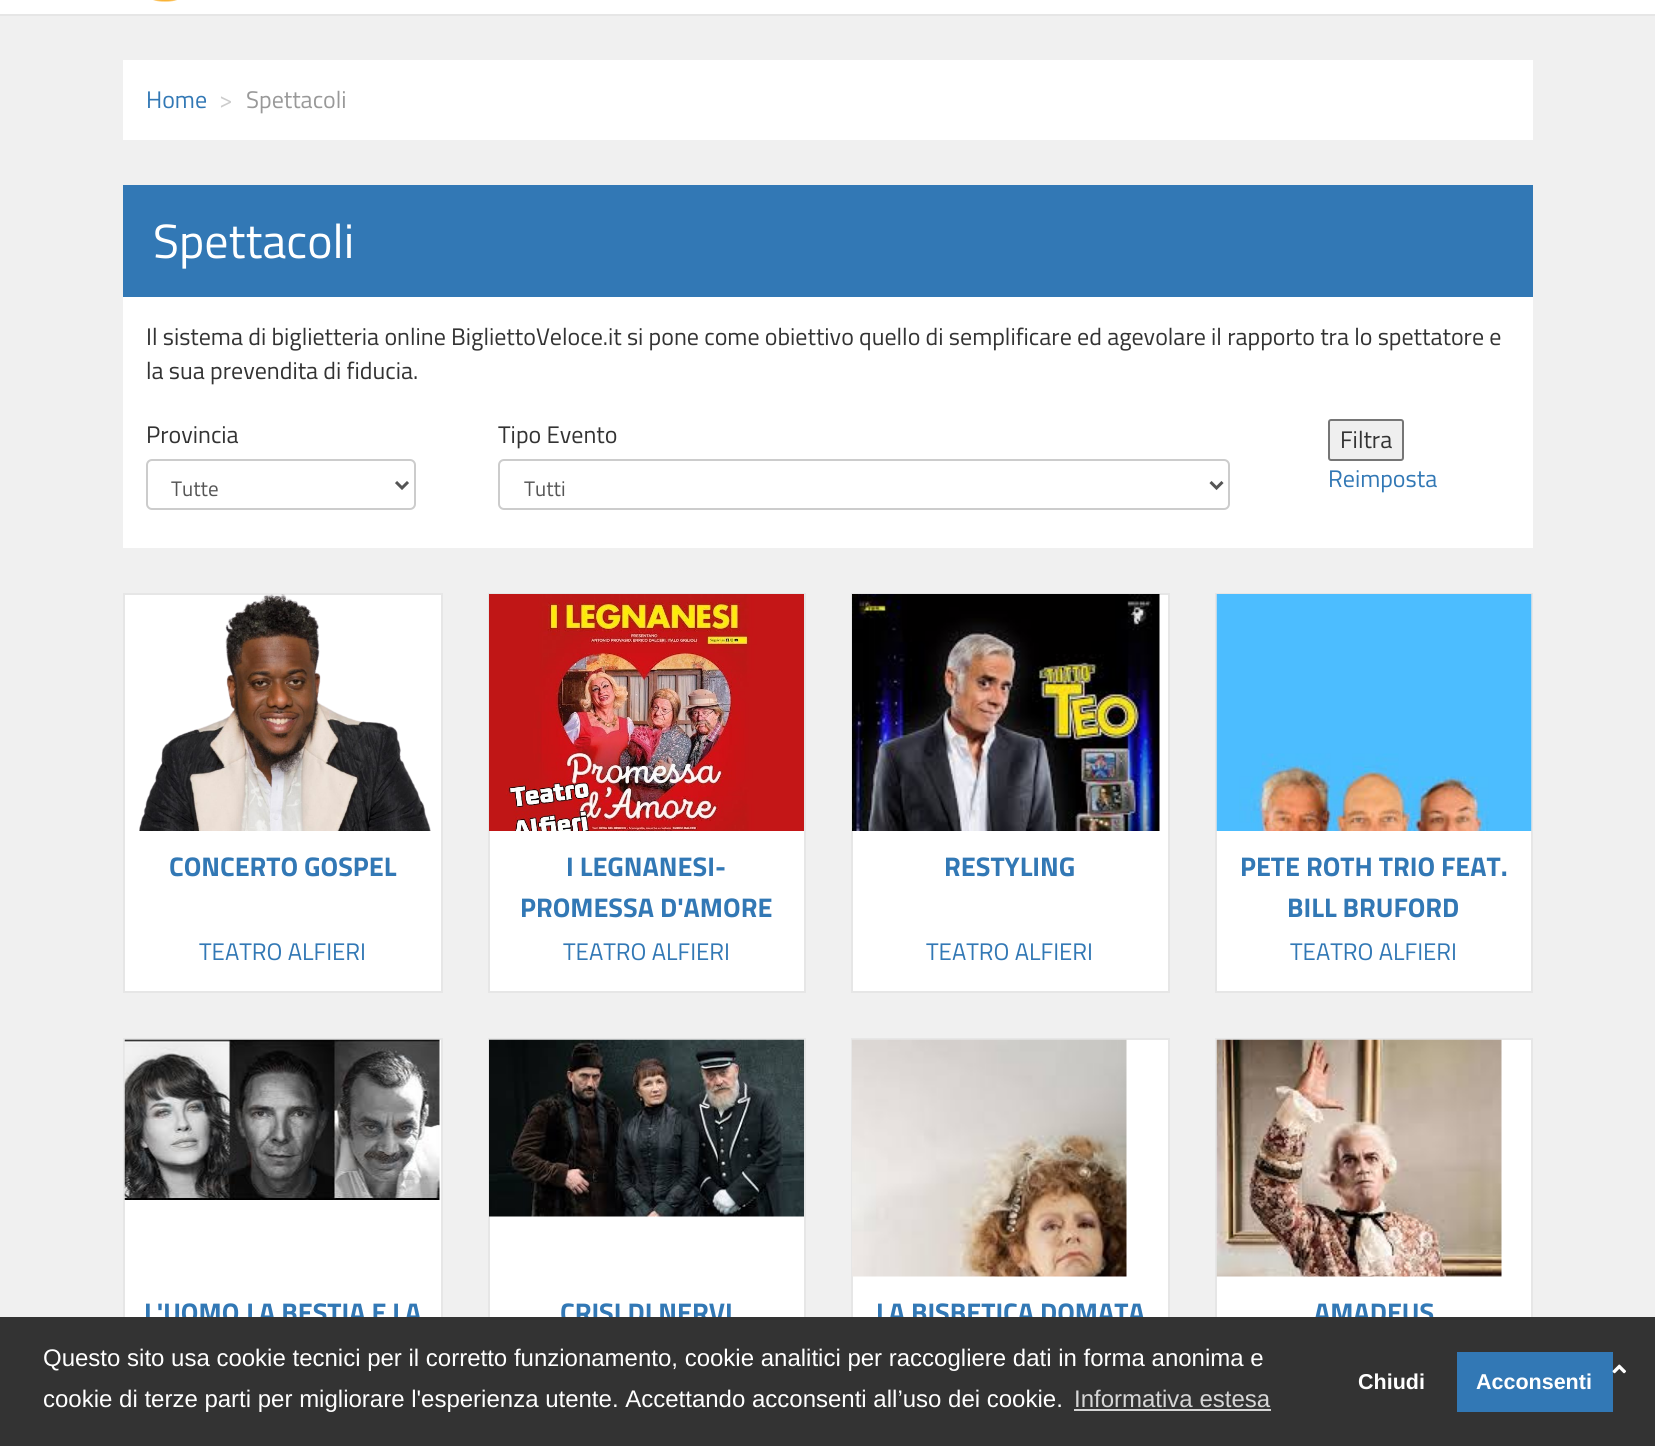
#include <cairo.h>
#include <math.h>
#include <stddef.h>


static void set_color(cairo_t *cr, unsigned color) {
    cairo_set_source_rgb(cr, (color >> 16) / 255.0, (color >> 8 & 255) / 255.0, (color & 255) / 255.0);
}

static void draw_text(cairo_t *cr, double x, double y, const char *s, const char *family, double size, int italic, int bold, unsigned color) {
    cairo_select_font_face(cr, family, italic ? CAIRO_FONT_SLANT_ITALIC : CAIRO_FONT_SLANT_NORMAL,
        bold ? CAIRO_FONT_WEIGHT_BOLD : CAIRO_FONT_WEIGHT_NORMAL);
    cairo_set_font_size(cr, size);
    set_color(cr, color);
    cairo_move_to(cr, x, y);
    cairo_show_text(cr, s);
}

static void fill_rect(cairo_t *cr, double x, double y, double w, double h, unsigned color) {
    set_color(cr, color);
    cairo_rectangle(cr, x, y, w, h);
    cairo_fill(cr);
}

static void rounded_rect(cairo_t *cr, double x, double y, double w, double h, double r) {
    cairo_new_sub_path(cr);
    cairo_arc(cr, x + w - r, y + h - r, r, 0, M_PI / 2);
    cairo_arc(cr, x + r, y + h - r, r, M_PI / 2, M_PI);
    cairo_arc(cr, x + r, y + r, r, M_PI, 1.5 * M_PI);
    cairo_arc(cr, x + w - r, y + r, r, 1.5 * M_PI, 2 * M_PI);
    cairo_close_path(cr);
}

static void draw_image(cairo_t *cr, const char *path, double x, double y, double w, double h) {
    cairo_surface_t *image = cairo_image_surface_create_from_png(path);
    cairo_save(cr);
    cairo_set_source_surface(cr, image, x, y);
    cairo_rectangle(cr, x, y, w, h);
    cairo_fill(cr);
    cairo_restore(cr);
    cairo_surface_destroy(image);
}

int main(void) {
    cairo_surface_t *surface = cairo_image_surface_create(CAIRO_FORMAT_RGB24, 1655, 1446);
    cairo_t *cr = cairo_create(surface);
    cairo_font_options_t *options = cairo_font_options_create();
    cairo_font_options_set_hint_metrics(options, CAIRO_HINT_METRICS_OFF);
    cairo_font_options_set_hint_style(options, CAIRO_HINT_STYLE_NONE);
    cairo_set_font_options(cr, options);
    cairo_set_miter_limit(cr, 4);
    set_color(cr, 0xF0F0F0);
    cairo_paint(cr);
    fill_rect(cr, 0, 0, 1655, 14, 0xFFFFFF);
    fill_rect(cr, 0, 14, 1655, 2, 0xE6E6E6);
    draw_image(cr, "assets/img1.png", 153, 0, 24, 2);
    fill_rect(cr, 123, 60, 1410, 80, 0xFFFFFF);
    draw_text(cr, 146, 108, "Home", "Titillium Web", 24, 0, 0, 0x3278B5);
    draw_text(cr, 219, 108, ">", "Titillium Web", 24, 0, 0, 0xCCCCCC);
    draw_text(cr, 246, 108, "Spettacoli", "Titillium Web", 24, 0, 0, 0x999999);
    fill_rect(cr, 123, 185, 1410, 112, 0x3278B5);
    draw_text(cr, 153, 258, "Spettacoli", "Titillium Web", 48, 0, 0, 0xFFFFFF);
    fill_rect(cr, 123, 297, 1410, 251, 0xFFFFFF);
    draw_text(cr, 146, 345, "Il sistema di biglietteria online BigliettoVeloce.it si pone come obiettivo quello di semplificare ed agevolare il rapporto tra lo spettatore e", "Titillium Web", 24, 0, 0, 0x333333);
    draw_text(cr, 146, 379, "la sua prevendita di fiducia.", "Titillium Web", 24, 0, 0, 0x333333);
    draw_text(cr, 146, 443, "Provincia", "Titillium Web", 24, 0, 0, 0x333333);
    rounded_rect(cr, 147, 460, 268, 49, 5);
    set_color(cr, 0xCCCCCC);
    cairo_stroke(cr);
    cairo_new_path(cr);
    cairo_move_to(cr, 396, 482);
    cairo_line_to(cr, 402, 488);
    cairo_line_to(cr, 408, 482);
    set_color(cr, 0x555555);
    cairo_set_line_width(cr, 3);
    cairo_stroke(cr);
    draw_text(cr, 171, 496, "Tutte", "Titillium Web", 21, 0, 0, 0x555555);
    draw_text(cr, 498, 443, "Tipo Evento", "Titillium Web", 24, 0, 0, 0x333333);
    rounded_rect(cr, 499, 460, 730, 49, 5);
    set_color(cr, 0xCCCCCC);
    cairo_set_line_width(cr, 2);
    cairo_stroke(cr);
    cairo_new_path(cr);
    cairo_move_to(cr, 1210.5, 482);
    cairo_line_to(cr, 1216.5, 488);
    cairo_line_to(cr, 1222.5, 482);
    set_color(cr, 0x555555);
    cairo_set_line_width(cr, 3);
    cairo_stroke(cr);
    draw_text(cr, 524, 496, "Tutti", "Titillium Web", 21, 0, 0, 0x555555);
    set_color(cr, 0xEFEFEF);
    rounded_rect(cr, 1329, 420, 74, 40, 2);
    cairo_fill_preserve(cr);
    set_color(cr, 0x767676);
    cairo_set_line_width(cr, 2);
    cairo_stroke(cr);
    draw_text(cr, 1340, 448, "Filtra", "Titillium Web", 24, 0, 0, 0x333333);
    draw_text(cr, 1328, 487, "Reimposta", "Titillium Web", 24, 0, 0, 0x3278B5);
    set_color(cr, 0xFFFFFF);
    cairo_rectangle(cr, 124, 594, 318, 398);
    cairo_fill_preserve(cr);
    set_color(cr, 0xE6E6E6);
    cairo_stroke(cr);
    draw_image(cr, "assets/img2.png", 139, 594, 292, 237);
    draw_text(cr, 169, 876, "CONCERTO GOSPEL", "Titillium Web", 27, 0, 1, 0x3278B5);
    draw_text(cr, 199, 960, "TEATRO ALFIERI", "Titillium Web", 24, 0, 0, 0x3278B5);
    fill_rect(cr, 490, 831, 314, 160, 0xFFFFFF);
    cairo_rectangle(cr, 489, 594, 316, 398);
    set_color(cr, 0xE6E6E6);
    cairo_stroke(cr);
    draw_image(cr, "assets/img3.png", 489, 594, 315, 237);
    draw_text(cr, 566, 876, "I LEGNANESI-", "Titillium Web", 27, 0, 1, 0x3278B5);
    draw_text(cr, 520, 917, "PROMESSA D'AMORE", "Titillium Web", 27, 0, 1, 0x3278B5);
    draw_text(cr, 563, 960, "TEATRO ALFIERI", "Titillium Web", 24, 0, 0, 0x3278B5);
    set_color(cr, 0xFFFFFF);
    cairo_rectangle(cr, 852, 594, 317, 398);
    cairo_fill_preserve(cr);
    set_color(cr, 0xE6E6E6);
    cairo_stroke(cr);
    draw_image(cr, "assets/img4.png", 852, 594, 308, 237);
    draw_text(cr, 944, 876, "RESTYLING", "Titillium Web", 27, 0, 1, 0x3278B5);
    draw_text(cr, 926, 960, "TEATRO ALFIERI", "Titillium Web", 24, 0, 0, 0x3278B5);
    fill_rect(cr, 1217, 831, 314, 160, 0xFFFFFF);
    cairo_rectangle(cr, 1216, 594, 316, 398);
    set_color(cr, 0xE6E6E6);
    cairo_stroke(cr);
    draw_image(cr, "assets/img5.png", 1216, 594, 316, 237);
    draw_text(cr, 1240, 876, "PETE ROTH TRIO FEAT.", "Titillium Web", 27, 0, 1, 0x3278B5);
    draw_text(cr, 1287, 917, "BILL BRUFORD", "Titillium Web", 27, 0, 1, 0x3278B5);
    draw_text(cr, 1290, 960, "TEATRO ALFIERI", "Titillium Web", 24, 0, 0, 0x3278B5);
    fill_rect(cr, 125, 1040, 316, 277, 0xFFFFFF);
    cairo_rectangle(cr, 124, 1039, 318, 399);
    set_color(cr, 0xE6E6E6);
    cairo_stroke(cr);
    draw_image(cr, "assets/img6.png", 124, 1039, 316, 161);
    draw_text(cr, 144, 1322, "L'UOMO,LA BESTIA E LA", "Titillium Web", 27, 0, 1, 0x3278B5);
    fill_rect(cr, 490, 1216, 314, 101, 0xFFFFFF);
    cairo_rectangle(cr, 489, 1039, 316, 399);
    set_color(cr, 0xE6E6E6);
    cairo_stroke(cr);
    draw_image(cr, "assets/img7.png", 489, 1039, 315, 178);
    draw_text(cr, 560, 1322, "CRISI DI NERVI", "Titillium Web", 27, 0, 1, 0x3278B5);
    fill_rect(cr, 853, 1040, 315, 277, 0xFFFFFF);
    cairo_rectangle(cr, 852, 1039, 317, 399);
    set_color(cr, 0xE6E6E6);
    cairo_stroke(cr);
    draw_image(cr, "assets/img8.png", 852, 1039, 275, 238);
    draw_text(cr, 876, 1322, "LA BISBETICA DOMATA", "Titillium Web", 27, 0, 1, 0x3278B5);
    fill_rect(cr, 1217, 1040, 314, 277, 0xFFFFFF);
    cairo_rectangle(cr, 1216, 1039, 316, 399);
    set_color(cr, 0xE6E6E6);
    cairo_stroke(cr);
    draw_image(cr, "assets/img9.png", 1216, 1039, 286, 238);
    draw_text(cr, 1314, 1322, "AMADEUS", "Titillium Web", 27, 0, 1, 0x3278B5);
    fill_rect(cr, 0, 1317, 1655, 129, 0x333333);
    draw_text(cr, 43, 1366, "Questo sito usa cookie tecnici per il corretto funzionamento, cookie analitici per raccogliere dati in forma anonima e", "Liberation Sans", 24, 0, 0, 0xFFFFFF);
    draw_text(cr, 43, 1407, "cookie di terze parti per migliorare l'esperienza utente. Accettando acconsenti all’uso dei cookie.", "Liberation Sans", 24, 0, 0, 0xFFFFFF);
    draw_text(cr, 1074, 1407, "Informativa estesa", "Liberation Sans", 24, 0, 0, 0xD6D6D6);
    fill_rect(cr, 1074, 1409, 197, 2, 0xD6D6D6);
    draw_text(cr, 1358, 1389, "Chiudi", "Liberation Sans", 21.5, 0, 1, 0xFFFFFF);
    fill_rect(cr, 1457, 1352, 156, 60, 0x3278B5);
    draw_text(cr, 1476, 1389, "Acconsenti", "Liberation Sans", 21.5, 0, 1, 0xFFFFFF);
    draw_image(cr, "assets/img10.png", 1612, 1364, 14, 10);
    cairo_surface_write_to_png(surface, "output.png");
    cairo_font_options_destroy(options);
    cairo_destroy(cr);
    cairo_surface_destroy(surface);
    return 0;
}
